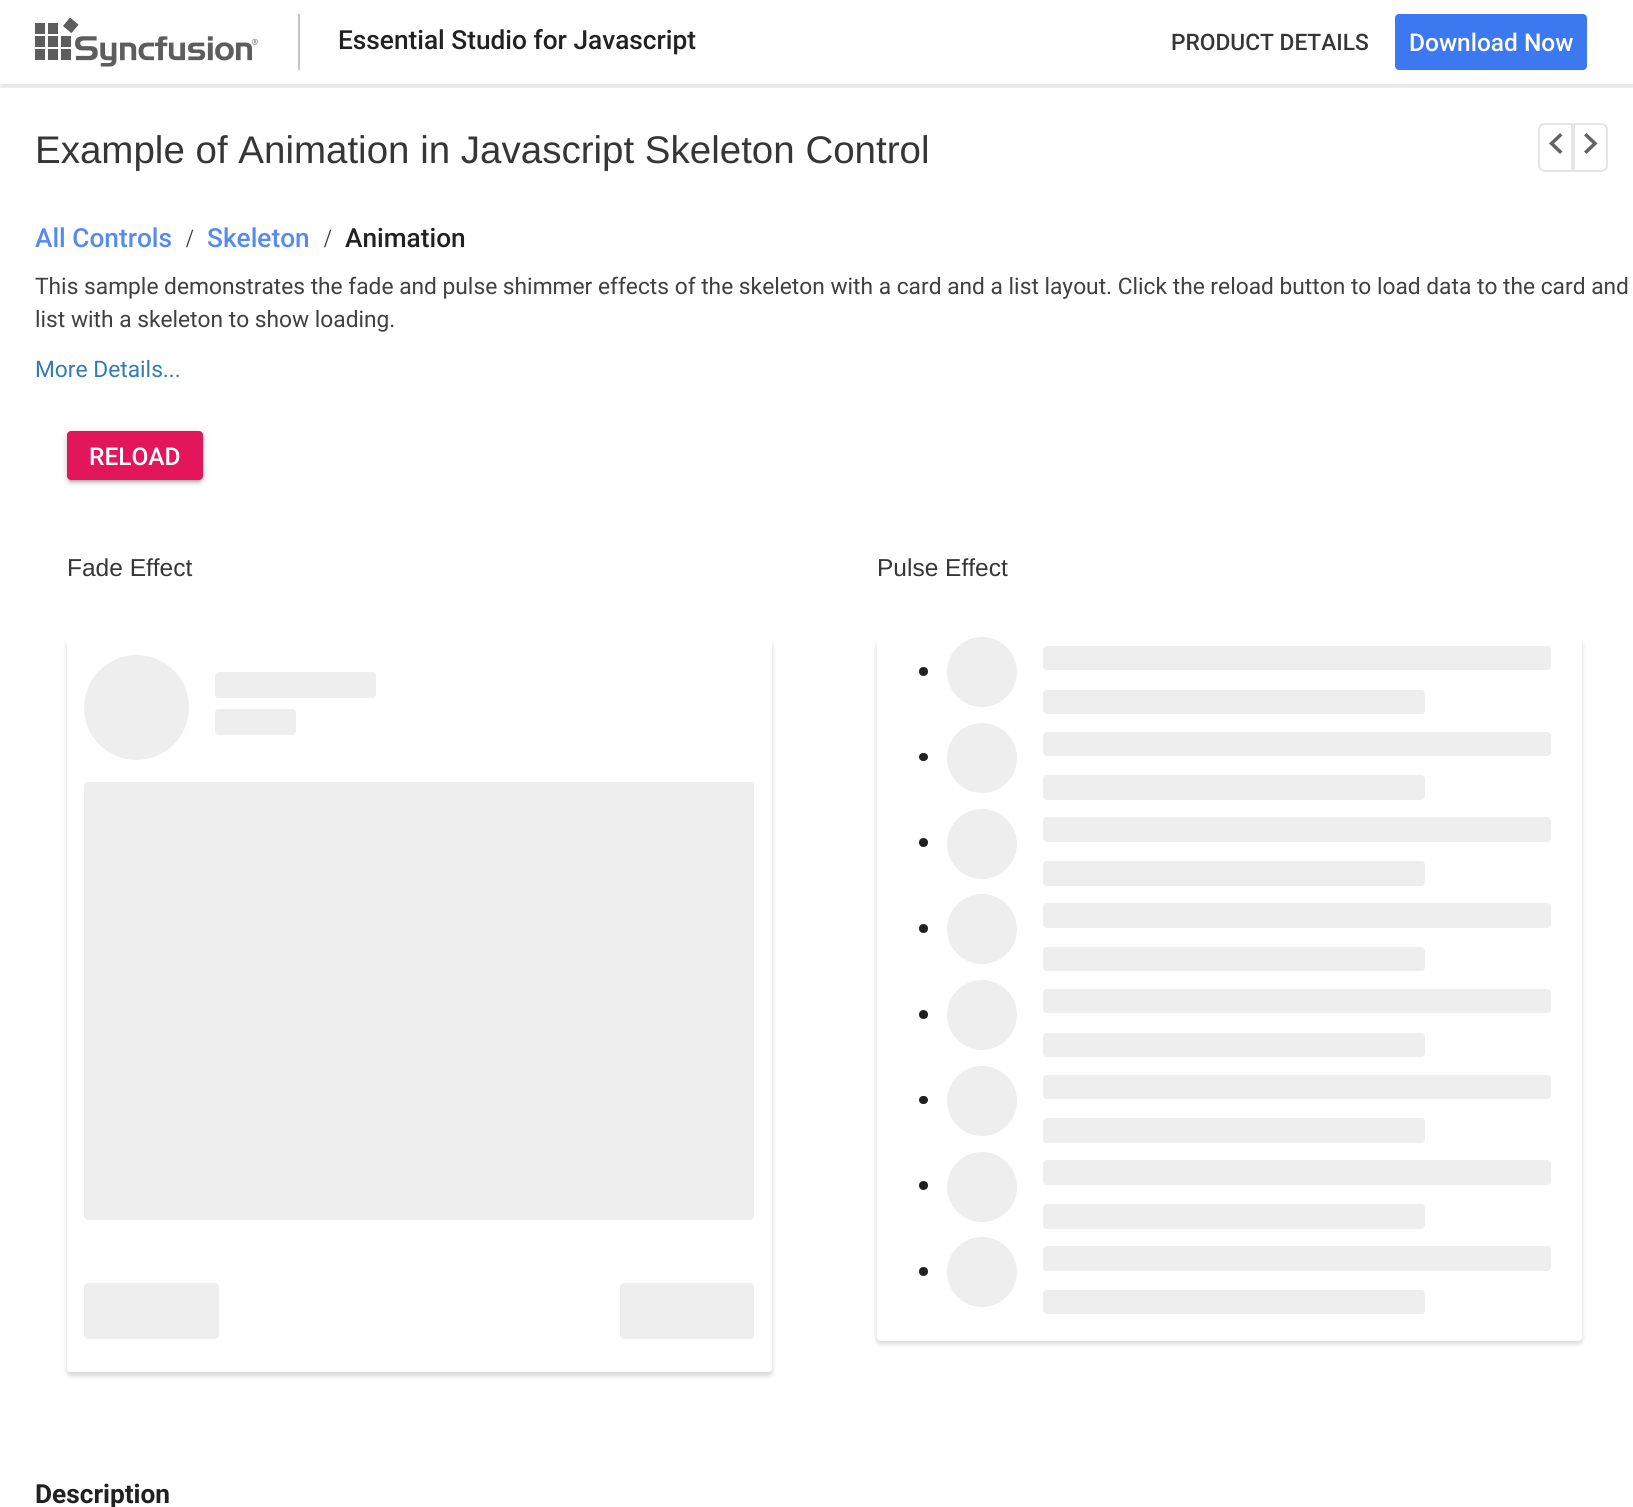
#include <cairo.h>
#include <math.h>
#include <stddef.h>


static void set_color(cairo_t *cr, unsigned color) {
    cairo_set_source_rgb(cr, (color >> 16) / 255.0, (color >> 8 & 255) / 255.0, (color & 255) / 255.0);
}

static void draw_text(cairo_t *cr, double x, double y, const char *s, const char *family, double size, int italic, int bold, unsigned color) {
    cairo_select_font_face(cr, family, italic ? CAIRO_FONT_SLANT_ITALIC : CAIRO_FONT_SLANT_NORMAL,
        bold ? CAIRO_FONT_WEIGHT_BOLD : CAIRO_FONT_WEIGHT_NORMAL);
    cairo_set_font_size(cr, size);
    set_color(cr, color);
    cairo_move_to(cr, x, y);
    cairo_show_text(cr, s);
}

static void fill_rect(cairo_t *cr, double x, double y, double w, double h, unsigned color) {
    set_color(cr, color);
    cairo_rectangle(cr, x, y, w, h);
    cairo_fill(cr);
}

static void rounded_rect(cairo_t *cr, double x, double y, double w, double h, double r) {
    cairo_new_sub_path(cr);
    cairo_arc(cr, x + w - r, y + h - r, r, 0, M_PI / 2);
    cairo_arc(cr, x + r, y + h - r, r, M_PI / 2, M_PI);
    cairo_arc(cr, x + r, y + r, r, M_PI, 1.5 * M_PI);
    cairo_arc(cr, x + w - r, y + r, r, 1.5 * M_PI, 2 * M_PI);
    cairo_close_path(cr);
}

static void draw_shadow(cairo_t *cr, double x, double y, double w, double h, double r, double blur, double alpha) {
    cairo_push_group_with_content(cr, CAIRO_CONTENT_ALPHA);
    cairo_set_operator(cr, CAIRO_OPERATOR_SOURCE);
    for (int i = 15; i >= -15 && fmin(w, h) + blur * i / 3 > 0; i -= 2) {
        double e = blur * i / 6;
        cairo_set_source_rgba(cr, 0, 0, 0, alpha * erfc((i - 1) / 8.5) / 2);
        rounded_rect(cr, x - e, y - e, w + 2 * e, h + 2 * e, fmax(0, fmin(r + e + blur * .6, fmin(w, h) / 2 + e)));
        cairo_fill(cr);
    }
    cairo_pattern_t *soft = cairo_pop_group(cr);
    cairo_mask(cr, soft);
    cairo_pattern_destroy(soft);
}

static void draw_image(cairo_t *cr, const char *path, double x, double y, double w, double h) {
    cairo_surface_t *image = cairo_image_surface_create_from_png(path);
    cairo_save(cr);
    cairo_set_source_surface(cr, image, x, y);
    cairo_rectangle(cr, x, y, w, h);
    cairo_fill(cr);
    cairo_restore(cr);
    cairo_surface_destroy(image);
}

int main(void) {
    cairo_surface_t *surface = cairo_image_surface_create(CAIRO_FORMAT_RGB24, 1633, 1507);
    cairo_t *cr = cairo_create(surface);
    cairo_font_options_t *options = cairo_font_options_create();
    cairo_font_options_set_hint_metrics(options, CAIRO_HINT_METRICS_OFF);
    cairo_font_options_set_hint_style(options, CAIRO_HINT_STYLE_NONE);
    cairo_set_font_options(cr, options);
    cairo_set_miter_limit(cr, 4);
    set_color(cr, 0xFFFFFF);
    cairo_paint(cr);
    cairo_save(cr);
    cairo_rectangle(cr, 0, 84, 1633, 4);
    cairo_clip(cr);
    set_color(cr, 0x000000);
    draw_shadow(cr, 0, 4, 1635, 84, 0, 3.5, 0.12);
    cairo_restore(cr);
    draw_image(cr, "assets/img1.png", 35, 18, 223, 49);
    fill_rect(cr, 298, 14, 2, 56, 0xC4C4C4);
    draw_text(cr, 338, 49, "Essential Studio for Javascript", "Roboto Medium", 26.25, 0, 0, 0x212121);
    draw_text(cr, 1171, 50, "PRODUCT DETAILS", "Roboto Medium", 22.75, 0, 0, 0x363636);
    set_color(cr, 0x3C78EF);
    rounded_rect(cr, 1395, 14, 192, 56, 4);
    cairo_fill(cr);
    draw_text(cr, 1409, 51, "Download Now", "Roboto Medium", 24.5, 0, 0, 0xFFFFFF);
    fill_rect(cr, 0, 88, 1633, 5, 0xFFFFFF);
    draw_text(cr, 35, 163, "Example of Animation in Javascript Skeleton Control", "Liberation Sans", 38.5, 0, 0, 0x363636);
    cairo_new_path(cr);
    cairo_move_to(cr, 1545, 124);
    cairo_line_to(cr, 1572, 124);
    cairo_line_to(cr, 1572, 171);
    cairo_line_to(cr, 1545, 171);
    cairo_curve_to(cr, 1541.5, 171, 1539, 168.5, 1539, 165);
    cairo_line_to(cr, 1539, 130);
    cairo_curve_to(cr, 1539, 126.5, 1541.5, 124, 1545, 124);
    cairo_close_path(cr);
    set_color(cr, 0xE5E5E5);
    cairo_stroke(cr);
    set_color(cr, 0x636363);
    cairo_new_path(cr);
    cairo_move_to(cr, 1562.5, 151.5);
    cairo_line_to(cr, 1554, 143.5);
    cairo_line_to(cr, 1562.5, 135.5);
    cairo_line_to(cr, 1560, 133);
    cairo_line_to(cr, 1549, 143.5);
    cairo_line_to(cr, 1560, 154);
    cairo_close_path(cr);
    cairo_fill(cr);
    cairo_new_path(cr);
    cairo_move_to(cr, 1574, 124);
    cairo_line_to(cr, 1601, 124);
    cairo_curve_to(cr, 1604.5, 124, 1607, 126.5, 1607, 130);
    cairo_line_to(cr, 1607, 165);
    cairo_curve_to(cr, 1607, 168.5, 1604.5, 171, 1601, 171);
    cairo_line_to(cr, 1574, 171);
    cairo_close_path(cr);
    set_color(cr, 0xE5E5E5);
    cairo_stroke(cr);
    set_color(cr, 0x636363);
    cairo_new_path(cr);
    cairo_move_to(cr, 1584, 151.5);
    cairo_line_to(cr, 1592.5, 143.5);
    cairo_line_to(cr, 1584, 135.5);
    cairo_line_to(cr, 1586.5, 133);
    cairo_line_to(cr, 1597.5, 143.5);
    cairo_line_to(cr, 1586.5, 154);
    cairo_close_path(cr);
    cairo_fill(cr);
    draw_text(cr, 35, 247, "All Controls", "Roboto Medium", 26.25, 0, 0, 0x558AF1);
    draw_text(cr, 186, 247, "/", "Liberation Serif", 26.25, 0, 0, 0x363636);
    draw_text(cr, 207, 247, "Skeleton", "Roboto Medium", 26.25, 0, 0, 0x558AF1);
    draw_text(cr, 324, 247, "/", "Liberation Serif", 26.25, 0, 0, 0x363636);
    draw_text(cr, 345, 247, "Animation", "Roboto Medium", 26.25, 0, 0, 0x212121);
    draw_text(cr, 35, 294, "This sample demonstrates the fade and pulse shimmer effects of the skeleton with a card and a list layout. Click the reload button to load data to the card and", "Roboto", 22.75, 0, 0, 0x404040);
    draw_text(cr, 35, 327, "list with a skeleton to show loading.", "Roboto", 22.75, 0, 0, 0x404040);
    draw_text(cr, 35, 377, "More Details...", "Roboto", 22.75, 0, 0, 0x337AB7);
    set_color(cr, 0x000000);
    draw_shadow(cr, 67, 432, 136, 49, 4, 4.5, 0.12);
    draw_shadow(cr, 67, 434, 136, 49, 4, 2, 0.14);
    draw_shadow(cr, 70, 439, 130, 42, 0, 1, 0.2);
    set_color(cr, 0xE3165B);
    rounded_rect(cr, 67, 431, 136, 49, 4);
    cairo_fill(cr);
    draw_text(cr, 89, 465, "RELOAD", "Roboto Medium", 24.5, 0, 0, 0xFFFFFF);
    draw_text(cr, 67, 576, "Fade Effect", "Liberation Sans", 24.5, 0, 0, 0x363636);
    set_color(cr, 0x000000);
    draw_shadow(cr, 67, 641, 705, 735, 4, 2.5, 0.16);
    set_color(cr, 0xFFFFFF);
    rounded_rect(cr, 67, 637, 705, 735, 4);
    cairo_fill(cr);
    set_color(cr, 0xEEEEEE);
    cairo_arc(cr, 136.5, 707.5, 52.5, 0, 2 * M_PI);
    cairo_fill(cr);
    rounded_rect(cr, 215, 672, 161, 26, 4);
    cairo_fill(cr);
    rounded_rect(cr, 215, 709, 81, 26, 4);
    cairo_fill(cr);
    rounded_rect(cr, 84, 782, 670, 438, 4);
    cairo_fill(cr);
    rounded_rect(cr, 84, 1283, 135, 56, 4);
    cairo_fill(cr);
    rounded_rect(cr, 620, 1283, 134, 56, 4);
    cairo_fill(cr);
    draw_text(cr, 877, 576, "Pulse Effect", "Liberation Sans", 24.5, 0, 0, 0x363636);
    set_color(cr, 0x000000);
    draw_shadow(cr, 877, 641, 705, 703, 4, 2.5, 0.16);
    set_color(cr, 0xFFFFFF);
    rounded_rect(cr, 877, 637, 705, 704, 4);
    cairo_fill(cr);
    set_color(cr, 0x212121);
    cairo_arc(cr, 923.5, 671.5, 4.5, 0, 2 * M_PI);
    cairo_fill(cr);
    set_color(cr, 0xEEEEEE);
    cairo_arc(cr, 982, 672, 35, 0, 2 * M_PI);
    cairo_fill(cr);
    rounded_rect(cr, 1043, 646, 508, 24, 4);
    cairo_fill(cr);
    rounded_rect(cr, 1043, 690, 382, 24, 4);
    cairo_fill(cr);
    set_color(cr, 0x212121);
    rounded_rect(cr, 919, 753, 9, 8, 4);
    cairo_fill(cr);
    set_color(cr, 0xEEEEEE);
    cairo_arc(cr, 982, 758, 35, 0, 2 * M_PI);
    cairo_fill(cr);
    rounded_rect(cr, 1043, 732, 508, 24, 4);
    cairo_fill(cr);
    rounded_rect(cr, 1043, 775, 382, 25, 4);
    cairo_fill(cr);
    set_color(cr, 0x212121);
    cairo_arc(cr, 923.5, 842.5, 4.5, 0, 2 * M_PI);
    cairo_fill(cr);
    set_color(cr, 0xEEEEEE);
    cairo_arc(cr, 982, 844, 35, 0, 2 * M_PI);
    cairo_fill(cr);
    rounded_rect(cr, 1043, 817, 508, 25, 4);
    cairo_fill(cr);
    rounded_rect(cr, 1043, 861, 382, 25, 4);
    cairo_fill(cr);
    set_color(cr, 0x212121);
    cairo_arc(cr, 923.5, 928.5, 4.5, 0, 2 * M_PI);
    cairo_fill(cr);
    set_color(cr, 0xEEEEEE);
    cairo_arc(cr, 982, 929, 35, 0, 2 * M_PI);
    cairo_fill(cr);
    rounded_rect(cr, 1043, 903, 508, 25, 4);
    cairo_fill(cr);
    rounded_rect(cr, 1043, 947, 382, 24, 4);
    cairo_fill(cr);
    set_color(cr, 0x212121);
    cairo_arc(cr, 923.5, 1014.5, 4.5, 0, 2 * M_PI);
    cairo_fill(cr);
    set_color(cr, 0xEEEEEE);
    cairo_arc(cr, 982, 1015, 35, 0, 2 * M_PI);
    cairo_fill(cr);
    rounded_rect(cr, 1043, 989, 508, 24, 4);
    cairo_fill(cr);
    rounded_rect(cr, 1043, 1033, 382, 24, 4);
    cairo_fill(cr);
    set_color(cr, 0x212121);
    rounded_rect(cr, 919, 1096, 9, 8, 4);
    cairo_fill(cr);
    set_color(cr, 0xEEEEEE);
    cairo_arc(cr, 982, 1101, 35, 0, 2 * M_PI);
    cairo_fill(cr);
    rounded_rect(cr, 1043, 1075, 508, 24, 4);
    cairo_fill(cr);
    rounded_rect(cr, 1043, 1118, 382, 25, 4);
    cairo_fill(cr);
    set_color(cr, 0x212121);
    cairo_arc(cr, 923.5, 1185.5, 4.5, 0, 2 * M_PI);
    cairo_fill(cr);
    set_color(cr, 0xEEEEEE);
    cairo_arc(cr, 982, 1187, 35, 0, 2 * M_PI);
    cairo_fill(cr);
    rounded_rect(cr, 1043, 1160, 508, 25, 4);
    cairo_fill(cr);
    rounded_rect(cr, 1043, 1204, 382, 25, 4);
    cairo_fill(cr);
    set_color(cr, 0x212121);
    cairo_arc(cr, 923.5, 1271.5, 4.5, 0, 2 * M_PI);
    cairo_fill(cr);
    set_color(cr, 0xEEEEEE);
    cairo_arc(cr, 982, 1272, 35, 0, 2 * M_PI);
    cairo_fill(cr);
    rounded_rect(cr, 1043, 1246, 508, 25, 4);
    cairo_fill(cr);
    rounded_rect(cr, 1043, 1290, 382, 24, 4);
    cairo_fill(cr);
    draw_text(cr, 35, 1503, "Description", "Roboto", 26.25, 0, 1, 0x212121);
    cairo_surface_write_to_png(surface, "output.png");
    cairo_font_options_destroy(options);
    cairo_destroy(cr);
    cairo_surface_destroy(surface);
    return 0;
}
